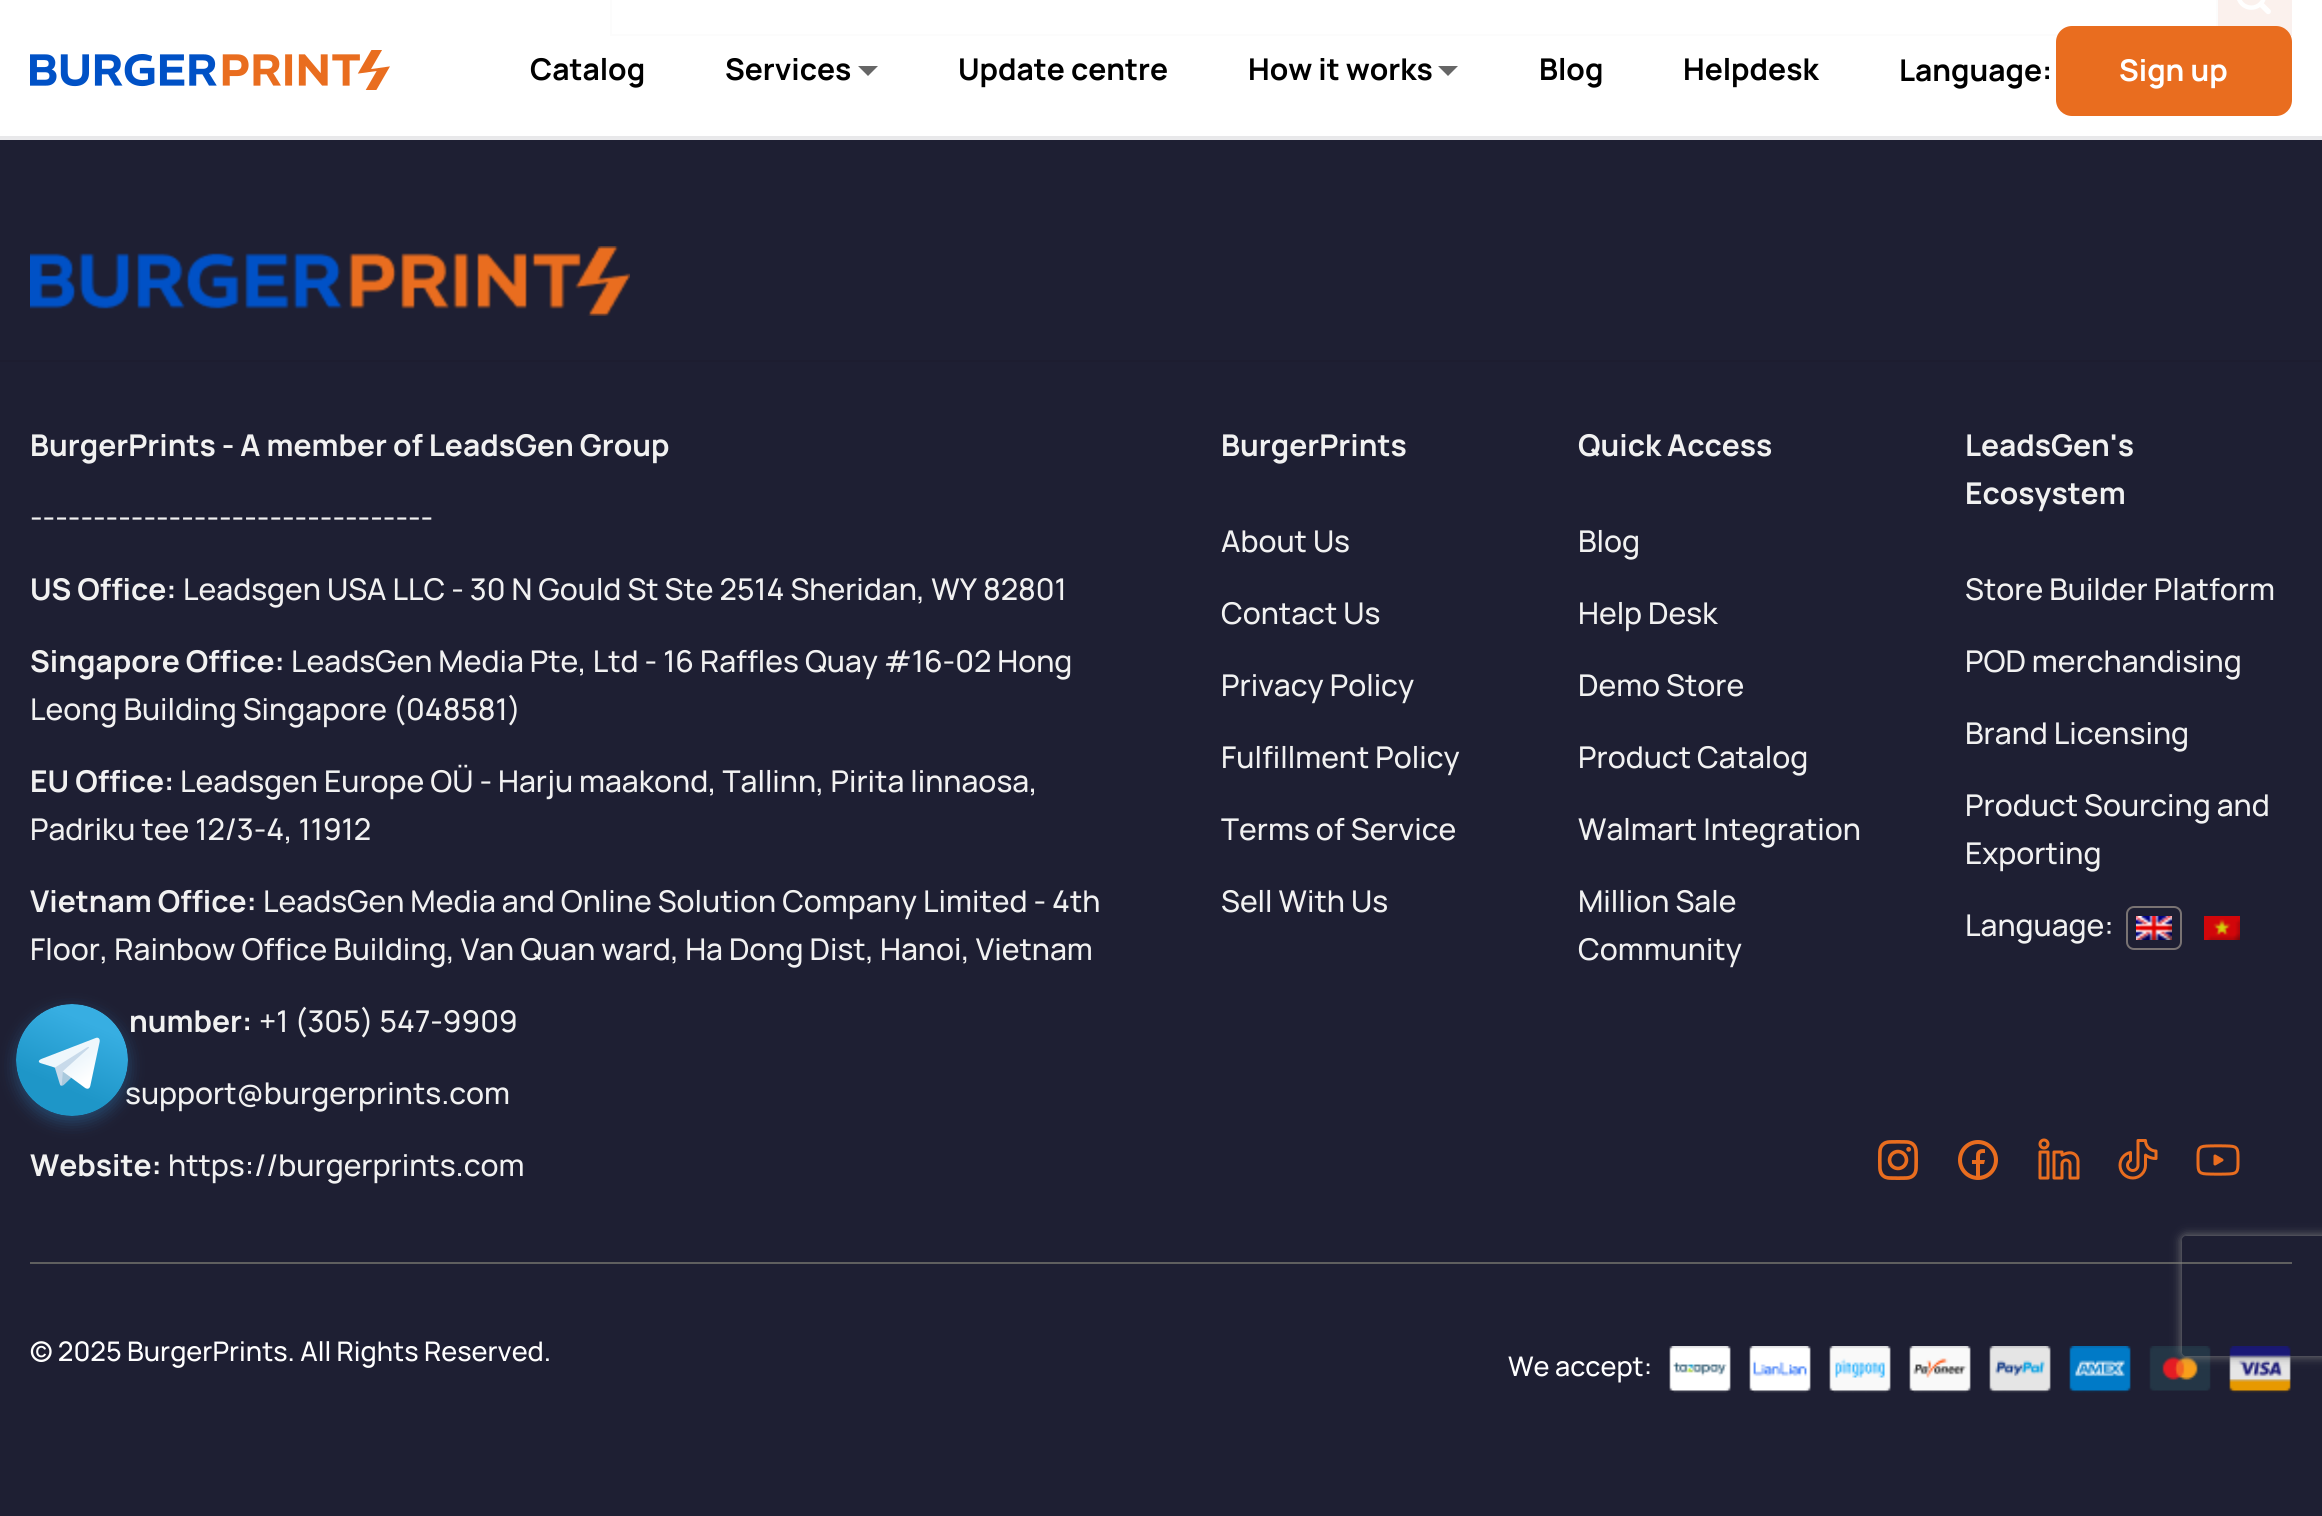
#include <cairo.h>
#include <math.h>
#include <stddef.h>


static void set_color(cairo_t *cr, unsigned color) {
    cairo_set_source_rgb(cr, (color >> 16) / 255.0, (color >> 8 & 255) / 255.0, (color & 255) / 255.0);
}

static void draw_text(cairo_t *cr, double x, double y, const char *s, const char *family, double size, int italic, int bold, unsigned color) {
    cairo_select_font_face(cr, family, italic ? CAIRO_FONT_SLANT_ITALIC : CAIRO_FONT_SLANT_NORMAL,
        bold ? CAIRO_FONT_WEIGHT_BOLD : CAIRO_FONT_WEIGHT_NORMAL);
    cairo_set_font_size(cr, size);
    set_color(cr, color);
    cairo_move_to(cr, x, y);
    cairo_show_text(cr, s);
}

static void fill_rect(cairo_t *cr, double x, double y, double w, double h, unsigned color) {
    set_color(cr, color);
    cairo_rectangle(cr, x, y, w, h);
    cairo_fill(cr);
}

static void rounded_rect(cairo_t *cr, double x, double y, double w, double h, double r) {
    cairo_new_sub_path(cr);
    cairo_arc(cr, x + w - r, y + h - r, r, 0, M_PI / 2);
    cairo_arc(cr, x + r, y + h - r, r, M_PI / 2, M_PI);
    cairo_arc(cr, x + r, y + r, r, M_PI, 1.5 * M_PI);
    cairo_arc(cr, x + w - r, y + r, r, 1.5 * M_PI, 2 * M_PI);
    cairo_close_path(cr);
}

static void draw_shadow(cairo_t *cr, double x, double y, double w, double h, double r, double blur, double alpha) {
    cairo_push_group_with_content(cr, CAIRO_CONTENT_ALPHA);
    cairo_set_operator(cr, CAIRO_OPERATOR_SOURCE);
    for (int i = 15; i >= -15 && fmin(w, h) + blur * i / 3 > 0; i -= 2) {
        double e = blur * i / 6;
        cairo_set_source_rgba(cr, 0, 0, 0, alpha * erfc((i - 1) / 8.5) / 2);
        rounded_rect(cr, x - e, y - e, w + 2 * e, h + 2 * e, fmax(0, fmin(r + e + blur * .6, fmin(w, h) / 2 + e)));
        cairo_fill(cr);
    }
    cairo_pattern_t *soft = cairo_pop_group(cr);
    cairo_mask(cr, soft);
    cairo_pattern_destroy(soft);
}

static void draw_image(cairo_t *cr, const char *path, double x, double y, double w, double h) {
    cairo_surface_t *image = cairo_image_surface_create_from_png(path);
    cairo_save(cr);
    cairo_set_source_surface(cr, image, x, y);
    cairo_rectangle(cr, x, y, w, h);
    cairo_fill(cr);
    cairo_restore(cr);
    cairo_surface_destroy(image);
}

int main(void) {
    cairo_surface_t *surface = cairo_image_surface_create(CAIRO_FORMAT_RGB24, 2322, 1516);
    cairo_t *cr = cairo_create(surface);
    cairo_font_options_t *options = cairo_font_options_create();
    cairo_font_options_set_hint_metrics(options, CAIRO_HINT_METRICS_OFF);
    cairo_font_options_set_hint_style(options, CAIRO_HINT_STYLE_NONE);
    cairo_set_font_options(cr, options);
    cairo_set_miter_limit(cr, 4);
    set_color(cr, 0x1E1F33);
    cairo_paint(cr);
    fill_rect(cr, 0, 0, 2322, 136, 0xFFFFFF);
    cairo_rectangle(cr, 611, -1, 1606, 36);
    set_color(cr, 0xFCFCFC);
    cairo_stroke(cr);
    set_color(cr, 0xFBF1ED);
    cairo_rectangle(cr, 2219, -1, 72, 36);
    cairo_fill_preserve(cr);
    set_color(cr, 0xFAF0ED);
    cairo_stroke(cr);
    draw_image(cr, "assets/img1.png", 2237, 0, 34, 15);
    draw_image(cr, "assets/img2.png", 30, 50, 360, 40);
    draw_text(cr, 530, 80, "Catalog", "Manrope", 30, 0, 1, 0x000000);
    draw_text(cr, 725, 80, "Services", "Manrope", 30, 0, 1, 0x000000);
    set_color(cr, 0x666666);
    cairo_new_path(cr);
    cairo_move_to(cr, 858, 66);
    cairo_line_to(cr, 878, 66);
    cairo_line_to(cr, 868, 76);
    cairo_close_path(cr);
    cairo_fill(cr);
    draw_text(cr, 958, 80, "Update centre", "Manrope", 30, 0, 1, 0x000000);
    draw_text(cr, 1248, 80, "How it works", "Manrope", 30, 0, 1, 0x000000);
    set_color(cr, 0x666666);
    cairo_new_path(cr);
    cairo_move_to(cr, 1438, 66);
    cairo_line_to(cr, 1458, 66);
    cairo_line_to(cr, 1448, 76);
    cairo_close_path(cr);
    cairo_fill(cr);
    draw_text(cr, 1539, 80, "Blog", "Manrope", 30, 0, 1, 0x000000);
    draw_text(cr, 1683, 80, "Helpdesk", "Manrope", 30, 0, 1, 0x000000);
    draw_text(cr, 1899, 81, "Language:", "Manrope", 30, 0, 1, 0x000000);
    set_color(cr, 0xE96D1F);
    rounded_rect(cr, 2056, 26, 236, 90, 16);
    cairo_fill(cr);
    draw_text(cr, 2119, 81, "Sign up", "Manrope", 30, 0, 1, 0xFFFFFF);
    fill_rect(cr, 0, 138, 2322, 2, 0xE9E9EB);
    fill_rect(cr, 0, 136, 2322, 2, 0xE8E8EA);
    draw_image(cr, "assets/img3.png", 30, 246, 600, 70);
    fill_rect(cr, 0, 360, 2322, 2, 0x1D1D30);
    fill_rect(cr, 30, 1262, 2262, 2, 0x5F5F5F);
    draw_text(cr, 30, 456, "BurgerPrints - A member of LeadsGen Group", "Manrope", 30, 0, 1, 0xF1F1F1);
    draw_text(cr, 30, 528, "--------------------------------", "Manrope Medium", 30, 0, 0, 0xF1F1F1);
    draw_text(cr, 30, 600, "US Office:", "Manrope", 30, 0, 1, 0xF1F1F1);
    draw_text(cr, 183, 600, "Leadsgen USA LLC - 30 N Gould St Ste 2514 Sheridan, WY 82801", "Manrope Medium", 30, 0, 0, 0xF1F1F1);
    draw_text(cr, 30, 672, "Singapore Office:", "Manrope", 30, 0, 1, 0xF1F1F1);
    draw_text(cr, 291, 672, "LeadsGen Media Pte, Ltd - 16 Raffles Quay #16-02 Hong", "Manrope Medium", 30, 0, 0, 0xF1F1F1);
    draw_text(cr, 30, 720, "Leong Building Singapore (048581)", "Manrope Medium", 30, 0, 0, 0xF1F1F1);
    draw_text(cr, 30, 792, "EU Office:", "Manrope", 30, 0, 1, 0xF1F1F1);
    draw_text(cr, 180, 792, "Leadsgen Europe OÜ - Harju maakond, Tallinn, Pirita linnaosa,", "Manrope Medium", 30, 0, 0, 0xF1F1F1);
    draw_text(cr, 30, 840, "Padriku tee 12/3-4, 11912", "Manrope Medium", 30, 0, 0, 0xF1F1F1);
    draw_text(cr, 30, 912, "Vietnam Office:", "Manrope", 30, 0, 1, 0xF1F1F1);
    draw_text(cr, 263, 912, "LeadsGen Media and Online Solution Company Limited - 4th", "Manrope Medium", 30, 0, 0, 0xF1F1F1);
    draw_text(cr, 30, 960, "Floor, Rainbow Office Building, Van Quan ward, Ha Dong Dist, Hanoi, Vietnam", "Manrope Medium", 30, 0, 0, 0xF1F1F1);
    draw_text(cr, 129, 1032, "number:", "Manrope", 30, 0, 1, 0xF1F1F1);
    draw_text(cr, 259, 1032, "+1 (305) 547-9909", "Manrope Medium", 30, 0, 0, 0xF1F1F1);
    draw_text(cr, 125, 1104, "support@burgerprints.com", "Manrope Medium", 30, 0, 0, 0xF1F1F1);
    draw_text(cr, 30, 1176, "Website:", "Manrope", 30, 0, 1, 0xF1F1F1);
    draw_text(cr, 168, 1176, "https://burgerprints.com", "Manrope Medium", 30, 0, 0, 0xF1F1F1);
    draw_text(cr, 1221, 456, "BurgerPrints", "Manrope", 30, 0, 1, 0xF1F1F1);
    draw_text(cr, 1221, 552, "About Us", "Manrope Medium", 30, 0, 0, 0xF1F1F1);
    draw_text(cr, 1221, 624, "Contact Us", "Manrope Medium", 30, 0, 0, 0xF1F1F1);
    draw_text(cr, 1221, 696, "Privacy Policy", "Manrope Medium", 30, 0, 0, 0xF1F1F1);
    draw_text(cr, 1221, 768, "Fulfillment Policy", "Manrope Medium", 30, 0, 0, 0xF1F1F1);
    draw_text(cr, 1221, 840, "Terms of Service", "Manrope Medium", 30, 0, 0, 0xF1F1F1);
    draw_text(cr, 1221, 912, "Sell With Us", "Manrope Medium", 30, 0, 0, 0xF1F1F1);
    draw_text(cr, 1578, 456, "Quick Access", "Manrope", 30, 0, 1, 0xF1F1F1);
    draw_text(cr, 1578, 552, "Blog", "Manrope Medium", 30, 0, 0, 0xF1F1F1);
    draw_text(cr, 1578, 624, "Help Desk", "Manrope Medium", 30, 0, 0, 0xF1F1F1);
    draw_text(cr, 1578, 696, "Demo Store", "Manrope Medium", 30, 0, 0, 0xF1F1F1);
    draw_text(cr, 1578, 768, "Product Catalog", "Manrope Medium", 30, 0, 0, 0xF1F1F1);
    draw_text(cr, 1578, 840, "Walmart Integration", "Manrope Medium", 30, 0, 0, 0xF1F1F1);
    draw_text(cr, 1578, 912, "Million Sale", "Manrope Medium", 30, 0, 0, 0xF1F1F1);
    draw_text(cr, 1578, 960, "Community", "Manrope Medium", 30, 0, 0, 0xF1F1F1);
    draw_text(cr, 1965, 456, "LeadsGen's", "Manrope", 30, 0, 1, 0xF1F1F1);
    draw_text(cr, 1965, 504, "Ecosystem", "Manrope", 30, 0, 1, 0xF1F1F1);
    draw_text(cr, 1965, 600, "Store Builder Platform", "Manrope Medium", 30, 0, 0, 0xF1F1F1);
    draw_text(cr, 1965, 672, "POD merchandising", "Manrope Medium", 30, 0, 0, 0xF1F1F1);
    draw_text(cr, 1965, 744, "Brand Licensing", "Manrope Medium", 30, 0, 0, 0xF1F1F1);
    draw_text(cr, 1965, 816, "Product Sourcing and", "Manrope Medium", 30, 0, 0, 0xF1F1F1);
    draw_text(cr, 1965, 864, "Exporting", "Manrope Medium", 30, 0, 0, 0xF1F1F1);
    draw_text(cr, 1965, 936, "Language:", "Manrope Medium", 30, 0, 0, 0xF1F1F1);
    rounded_rect(cr, 2127, 907, 54, 42, 7);
    set_color(cr, 0x797373);
    cairo_stroke(cr);
    draw_image(cr, "assets/img4.png", 2136, 916, 36, 24);
    draw_image(cr, "assets/img5.png", 2204, 916, 36, 24);
    draw_image(cr, "assets/img6.png", 1878, 1140, 40, 40);
    draw_image(cr, "assets/img7.png", 1958, 1140, 40, 40);
    draw_image(cr, "assets/img8.png", 2038, 1138, 42, 42);
    draw_image(cr, "assets/img9.png", 2118, 1139, 40, 41);
    draw_image(cr, "assets/img10.png", 2196, 1144, 44, 32);
    draw_text(cr, 30, 1361, "© 2025 BurgerPrints. All Rights Reserved.", "Manrope Medium", 27, 0, 0, 0xFFFFFF);
    draw_text(cr, 1508, 1376, "We accept:", "Manrope Medium", 27, 0, 0, 0xFFFFFF);
    draw_image(cr, "assets/img11.png", 1669, 1346, 62, 47);
    draw_image(cr, "assets/img12.png", 1749, 1346, 62, 47);
    draw_image(cr, "assets/img13.png", 1829, 1346, 62, 47);
    draw_image(cr, "assets/img14.png", 1909, 1346, 62, 47);
    draw_image(cr, "assets/img15.png", 1989, 1346, 62, 47);
    draw_image(cr, "assets/img16.png", 2069, 1346, 62, 47);
    draw_image(cr, "assets/img17.png", 2149, 1346, 62, 45);
    draw_image(cr, "assets/img18.png", 2229, 1346, 62, 47);
    set_color(cr, 0x36ADFF);
    draw_shadow(cr, 16, 1010, 112, 112, 56, 8, 0.3);
    draw_image(cr, "assets/img19.png", 16, 1004, 112, 112);
    cairo_save(cr);
    cairo_set_fill_rule(cr, CAIRO_FILL_RULE_EVEN_ODD);
    cairo_new_path(cr);
    cairo_move_to(cr, 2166, 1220);
    cairo_line_to(cr, 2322, 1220);
    cairo_line_to(cr, 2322, 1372);
    cairo_line_to(cr, 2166, 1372);
    cairo_close_path(cr);
    cairo_move_to(cr, 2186, 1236);
    cairo_line_to(cr, 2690, 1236);
    cairo_curve_to(cr, 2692, 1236, 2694, 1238, 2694, 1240);
    cairo_line_to(cr, 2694, 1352);
    cairo_curve_to(cr, 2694, 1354, 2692, 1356, 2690, 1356);
    cairo_line_to(cr, 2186, 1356);
    cairo_curve_to(cr, 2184, 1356, 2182, 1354, 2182, 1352);
    cairo_line_to(cr, 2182, 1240);
    cairo_curve_to(cr, 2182, 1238, 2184, 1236, 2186, 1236);
    cairo_close_path(cr);
    cairo_clip(cr);
    set_color(cr, 0x808080);
    draw_shadow(cr, 2182, 1236, 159, 120, 4, 5, 1);
    cairo_restore(cr);
    cairo_surface_write_to_png(surface, "output.png");
    cairo_font_options_destroy(options);
    cairo_destroy(cr);
    cairo_surface_destroy(surface);
    return 0;
}
